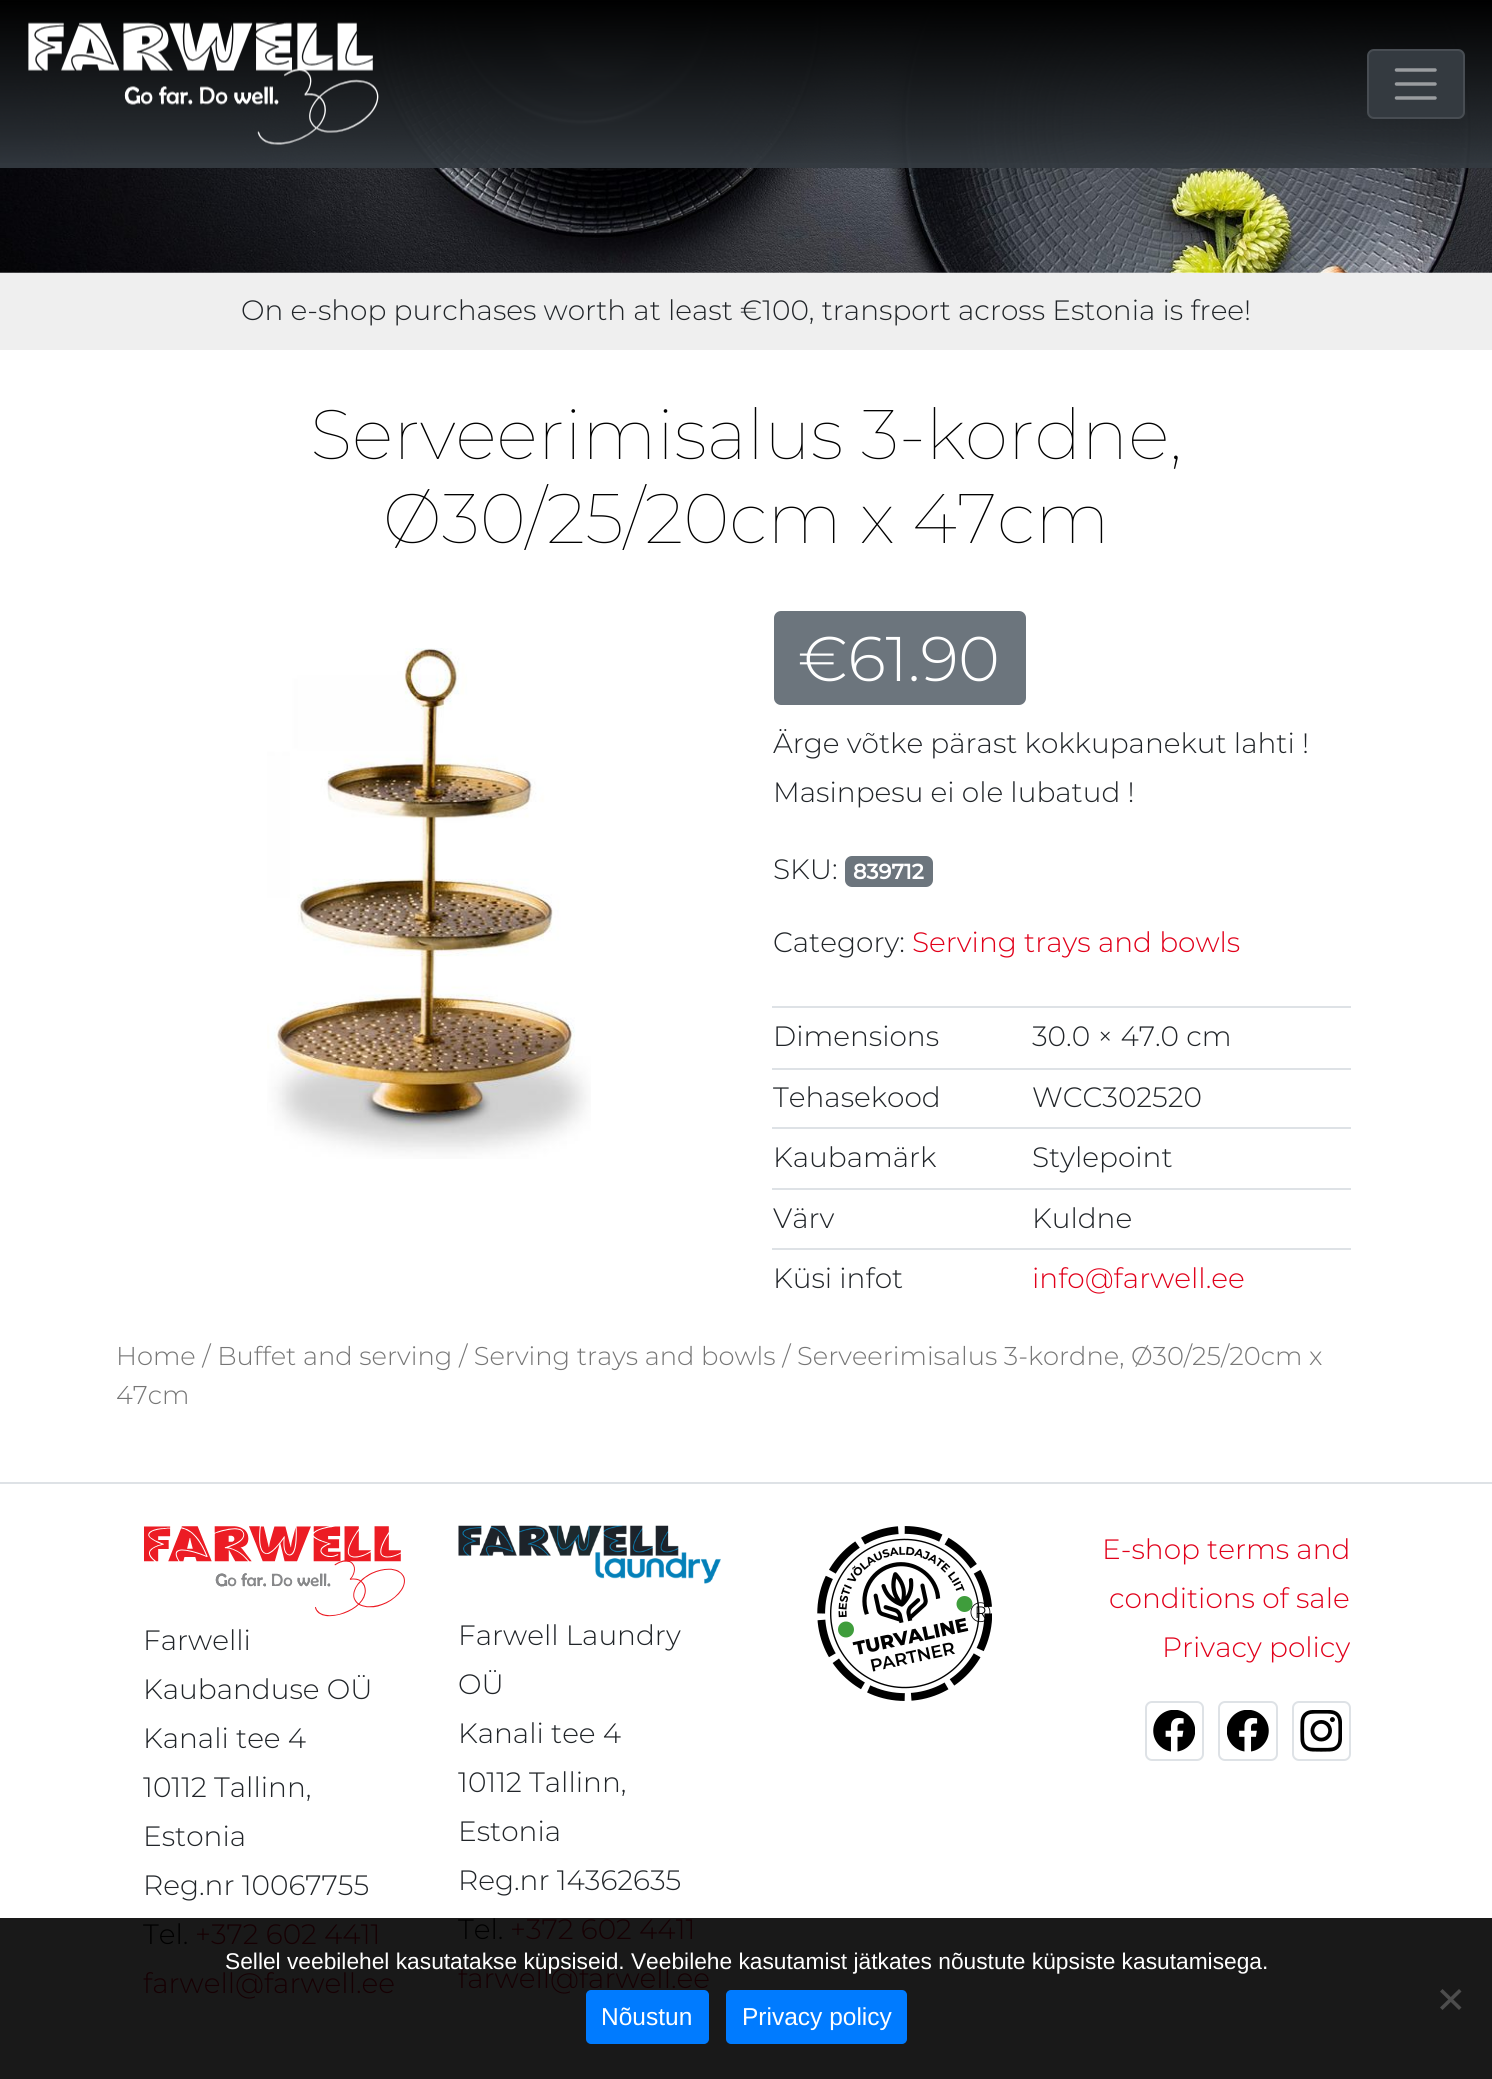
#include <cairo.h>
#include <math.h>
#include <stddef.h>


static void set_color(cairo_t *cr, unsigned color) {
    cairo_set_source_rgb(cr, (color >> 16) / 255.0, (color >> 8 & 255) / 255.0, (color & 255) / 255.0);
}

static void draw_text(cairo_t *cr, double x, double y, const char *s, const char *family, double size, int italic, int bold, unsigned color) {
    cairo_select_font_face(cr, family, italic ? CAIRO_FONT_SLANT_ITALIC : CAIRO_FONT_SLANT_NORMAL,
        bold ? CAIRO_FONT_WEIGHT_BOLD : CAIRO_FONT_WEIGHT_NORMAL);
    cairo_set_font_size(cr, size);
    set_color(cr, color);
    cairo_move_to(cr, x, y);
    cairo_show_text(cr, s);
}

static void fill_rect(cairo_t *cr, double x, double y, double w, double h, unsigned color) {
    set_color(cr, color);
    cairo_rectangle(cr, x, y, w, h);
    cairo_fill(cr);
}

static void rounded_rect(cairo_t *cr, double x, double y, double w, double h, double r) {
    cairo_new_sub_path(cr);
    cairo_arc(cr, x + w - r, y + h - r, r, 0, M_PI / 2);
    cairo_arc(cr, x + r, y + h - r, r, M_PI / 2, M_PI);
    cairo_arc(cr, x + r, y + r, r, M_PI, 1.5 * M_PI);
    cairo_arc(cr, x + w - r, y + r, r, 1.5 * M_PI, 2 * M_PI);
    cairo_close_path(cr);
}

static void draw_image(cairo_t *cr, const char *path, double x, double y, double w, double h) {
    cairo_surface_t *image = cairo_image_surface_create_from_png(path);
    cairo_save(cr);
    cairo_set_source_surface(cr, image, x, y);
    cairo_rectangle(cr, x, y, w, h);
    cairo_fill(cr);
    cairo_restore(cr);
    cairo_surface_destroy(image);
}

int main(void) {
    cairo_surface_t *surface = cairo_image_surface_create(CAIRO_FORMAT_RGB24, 1492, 2079);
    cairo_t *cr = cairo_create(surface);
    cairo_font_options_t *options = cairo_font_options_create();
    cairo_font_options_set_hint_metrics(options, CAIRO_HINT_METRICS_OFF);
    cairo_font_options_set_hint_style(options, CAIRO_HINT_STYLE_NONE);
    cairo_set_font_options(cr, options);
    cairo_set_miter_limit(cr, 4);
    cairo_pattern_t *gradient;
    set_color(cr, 0xFFFFFF);
    cairo_paint(cr);
    fill_rect(cr, 0, 1918, 1492, 161, 0x191919);
    draw_image(cr, "assets/img1.png", 0, 1, 1492, 272);
    cairo_set_source_rgba(cr, 0.204, 0.227, 0.251, 0.95);
    cairo_rectangle(cr, 0, 1, 1492, 167);
    cairo_fill(cr);
    gradient = cairo_pattern_create_linear(746, 0, 746, 168);
    cairo_pattern_add_color_stop_rgba(gradient, 0, 0, 0, 0, 1);
    cairo_pattern_add_color_stop_rgba(gradient, 0.8, 0, 0, 0, 0.25);
    cairo_pattern_add_color_stop_rgba(gradient, 1, 0, 0, 0, 0);
    cairo_set_source(cr, gradient);
    cairo_pattern_destroy(gradient);
    cairo_rectangle(cr, 0, 0, 1492, 163);
    cairo_fill(cr);
    draw_image(cr, "assets/img2.png", 28, 22, 351, 123);
    set_color(cr, 0x343A40);
    rounded_rect(cr, 1367, 49, 98, 70, 7);
    cairo_fill(cr);
    rounded_rect(cr, 1368, 50, 96, 68, 6);
    cairo_set_source_rgba(cr, 1, 1, 1, 0.1);
    cairo_stroke(cr);
    cairo_new_path(cr);
    cairo_move_to(cr, 1396.5, 70);
    cairo_line_to(cr, 1435, 70);
    cairo_move_to(cr, 1396.5, 84);
    cairo_line_to(cr, 1435, 84);
    cairo_move_to(cr, 1396.5, 98);
    cairo_line_to(cr, 1435, 98);
    set_color(cr, 0x9A9DA0);
    cairo_set_line_width(cr, 3.5);
    cairo_set_line_cap(cr, CAIRO_LINE_CAP_ROUND);
    cairo_stroke(cr);
    fill_rect(cr, 0, 273, 1492, 77, 0xEFEFEF);
    draw_text(cr, 241, 320, "On e-shop purchases worth at least €100, transport across Estonia is free!", "Montserrat Light", 28, 0, 0, 0x212529);
    draw_text(cr, 310, 459, "Serveerimisalus 3-kordne,", "Montserrat Thin", 70, 0, 0, 0x000000);
    draw_text(cr, 383, 543, "Ø30/25/20cm x 47cm", "Montserrat Thin", 70, 0, 0, 0x000000);
    draw_image(cr, "assets/img3.png", 267, 648, 324, 511);
    set_color(cr, 0x6C757D);
    rounded_rect(cr, 774, 611, 252, 94, 7);
    cairo_fill(cr);
    draw_text(cr, 798, 681, "€61.90", "Montserrat Light", 63, 0, 0, 0xFFFFFF);
    draw_text(cr, 773, 753, "Ärge võtke pärast kokkupanekut lahti !", "Montserrat Light", 28, 0, 0, 0x212529);
    draw_text(cr, 773, 802, "Masinpesu ei ole lubatud !", "Montserrat Light", 28, 0, 0, 0x212529);
    draw_text(cr, 773, 879, "SKU:", "Montserrat Light", 28, 0, 0, 0x212529);
    set_color(cr, 0x6C757D);
    rounded_rect(cr, 845, 856, 88, 31, 7);
    cairo_fill(cr);
    draw_text(cr, 853, 879, "839712", "Montserrat", 21, 0, 1, 0xFFFFFF);
    draw_text(cr, 773, 952, "Category:", "Montserrat Light", 28, 0, 0, 0x212529);
    draw_text(cr, 912, 952, "Serving trays and bowls", "Montserrat Light", 28, 0, 0, 0xE1001A);
    draw_text(cr, 773, 1046, "Dimensions", "Montserrat Light", 28, 0, 0, 0x212529);
    fill_rect(cr, 772, 1006, 579, 2, 0xDEE2E6);
    draw_text(cr, 1032, 1046, "30.0 × 47.0 cm", "Montserrat Light", 28, 0, 0, 0x212529);
    draw_text(cr, 773, 1107, "Tehasekood", "Montserrat Light", 28, 0, 0, 0x212529);
    fill_rect(cr, 772, 1068, 579, 2, 0xDEE2E6);
    draw_text(cr, 1032, 1107, "WCC302520", "Montserrat Light", 28, 0, 0, 0x212529);
    draw_text(cr, 773, 1167, "Kaubamärk", "Montserrat Light", 28, 0, 0, 0x212529);
    fill_rect(cr, 772, 1127, 579, 2, 0xDEE2E6);
    draw_text(cr, 1032, 1167, "Stylepoint", "Montserrat Light", 28, 0, 0, 0x212529);
    draw_text(cr, 773, 1228, "Värv", "Montserrat Light", 28, 0, 0, 0x212529);
    fill_rect(cr, 772, 1188, 579, 2, 0xDEE2E6);
    draw_text(cr, 1032, 1228, "Kuldne", "Montserrat Light", 28, 0, 0, 0x212529);
    draw_text(cr, 773, 1288, "Küsi infot", "Montserrat Light", 28, 0, 0, 0x212529);
    fill_rect(cr, 772, 1248, 579, 2, 0xDEE2E6);
    draw_text(cr, 1032, 1288, "info@farwell.ee", "Montserrat Light", 28, 0, 0, 0xE1001A);
    draw_text(cr, 116, 1365, "Home / Buffet and serving / Serving trays and bowls / Serveerimisalus 3-kordne, Ø30/25/20cm x", "Montserrat Light", 25.75, 0, 0, 0x767676);
    draw_text(cr, 116, 1404, "47cm", "Montserrat Light", 25.75, 0, 0, 0x767676);
    fill_rect(cr, 0, 1482, 1492, 2, 0xDEE2E6);
    draw_image(cr, "assets/img4.png", 817, 1526, 175, 175);
    draw_text(cr, 969, 1622, "®", "Montserrat Light", 28, 0, 0, 0x000000);
    draw_text(cr, 1102, 1559, "E-shop terms and", "Montserrat Light", 28, 0, 0, 0xE1001A);
    draw_text(cr, 1109, 1608, "conditions of sale", "Montserrat Light", 28, 0, 0, 0xE1001A);
    draw_text(cr, 1162, 1657, "Privacy policy", "Montserrat Light", 28, 0, 0, 0xE1001A);
    rounded_rect(cr, 1146, 1702, 57, 58, 6);
    set_color(cr, 0xDEE2E6);
    cairo_set_line_width(cr, 2);
    cairo_set_line_cap(cr, CAIRO_LINE_CAP_BUTT);
    cairo_stroke(cr);
    draw_image(cr, "assets/img5.png", 1153, 1710, 42, 42);
    rounded_rect(cr, 1219, 1702, 58, 58, 6);
    cairo_stroke(cr);
    draw_image(cr, "assets/img6.png", 1227, 1710, 42, 42);
    rounded_rect(cr, 1293, 1702, 57, 58, 6);
    cairo_stroke(cr);
    draw_image(cr, "assets/img7.png", 1300, 1710, 42, 42);
    draw_image(cr, "assets/img8.png", 144, 1526, 261, 91);
    draw_text(cr, 143, 1650, "Farwelli", "Montserrat Light", 28, 0, 0, 0x212529);
    draw_text(cr, 143, 1699, "Kaubanduse OÜ", "Montserrat Light", 28, 0, 0, 0x212529);
    draw_text(cr, 143, 1748, "Kanali tee 4", "Montserrat Light", 28, 0, 0, 0x212529);
    draw_text(cr, 143, 1797, "10112 Tallinn,", "Montserrat Light", 28, 0, 0, 0x212529);
    draw_text(cr, 143, 1846, "Estonia", "Montserrat Light", 28, 0, 0, 0x212529);
    draw_text(cr, 143, 1895, "Reg.nr 10067755", "Montserrat Light", 28, 0, 0, 0x212529);
    draw_text(cr, 143, 1944, "Tel.", "Montserrat Light", 28, 0, 0, 0x000000);
    draw_text(cr, 195, 1944, "+372 602 4411", "Montserrat Light", 28, 0, 0, 0x160003);
    draw_text(cr, 143, 1993, "farwell@farwell.ee", "Montserrat Light", 28, 0, 0, 0x160003);
    draw_image(cr, "assets/img9.png", 458, 1525, 263, 59);
    draw_text(cr, 458, 1645, "Farwell Laundry", "Montserrat Light", 28, 0, 0, 0x212529);
    draw_text(cr, 458, 1694, "OÜ", "Montserrat Light", 28, 0, 0, 0x212529);
    draw_text(cr, 458, 1743, "Kanali tee 4", "Montserrat Light", 28, 0, 0, 0x212529);
    draw_text(cr, 458, 1792, "10112 Tallinn,", "Montserrat Light", 28, 0, 0, 0x212529);
    draw_text(cr, 458, 1841, "Estonia", "Montserrat Light", 28, 0, 0, 0x212529);
    draw_text(cr, 458, 1890, "Reg.nr 14362635", "Montserrat Light", 28, 0, 0, 0x212529);
    draw_text(cr, 458, 1939, "Tel.", "Montserrat Light", 28, 0, 0, 0x000000);
    draw_text(cr, 510, 1939, "+372 602 4411", "Montserrat Light", 28, 0, 0, 0x160003);
    draw_text(cr, 458, 1988, "farwell@farwell.ee", "Montserrat Light", 28, 0, 0, 0x160003);
    draw_text(cr, 225, 1969, "Sellel veebilehel kasutatakse küpsiseid. Veebilehe kasutamist jätkates nõustute küpsiste kasutamisega.", "Liberation Sans", 22.75, 0, 0, 0xFFFFFF);
    set_color(cr, 0x4D4D4D);
    cairo_new_path(cr);
    cairo_move_to(cr, 1459, 1989);
    cairo_line_to(cr, 1461.5, 1991.5);
    cairo_line_to(cr, 1442.5, 2010);
    cairo_line_to(cr, 1440, 2007.5);
    cairo_close_path(cr);
    cairo_fill(cr);
    cairo_new_path(cr);
    cairo_move_to(cr, 1440, 1991.5);
    cairo_line_to(cr, 1442.5, 1989);
    cairo_line_to(cr, 1461.5, 2007.5);
    cairo_line_to(cr, 1459, 2010);
    cairo_close_path(cr);
    cairo_fill(cr);
    set_color(cr, 0x007BFF);
    rounded_rect(cr, 587, 1991, 121, 52, 4);
    cairo_fill_preserve(cr);
    cairo_stroke(cr);
    draw_text(cr, 601, 2025, "Nõustun", "Liberation Sans", 24.5, 0, 0, 0xFFFFFF);
    set_color(cr, 0x007BFF);
    rounded_rect(cr, 727, 1991, 179, 52, 4);
    cairo_fill_preserve(cr);
    cairo_stroke(cr);
    draw_text(cr, 742, 2025, "Privacy policy", "Liberation Sans", 24.5, 0, 0, 0xFFFFFF);
    cairo_surface_write_to_png(surface, "output.png");
    cairo_font_options_destroy(options);
    cairo_destroy(cr);
    cairo_surface_destroy(surface);
    return 0;
}
